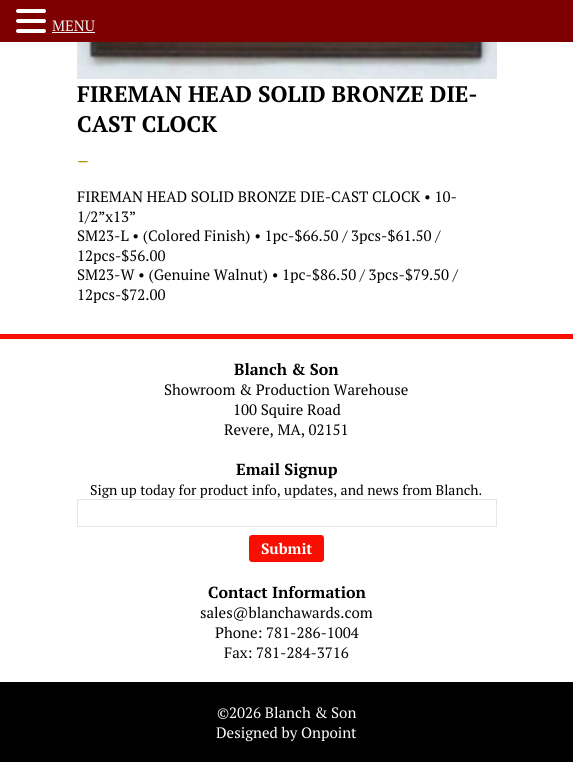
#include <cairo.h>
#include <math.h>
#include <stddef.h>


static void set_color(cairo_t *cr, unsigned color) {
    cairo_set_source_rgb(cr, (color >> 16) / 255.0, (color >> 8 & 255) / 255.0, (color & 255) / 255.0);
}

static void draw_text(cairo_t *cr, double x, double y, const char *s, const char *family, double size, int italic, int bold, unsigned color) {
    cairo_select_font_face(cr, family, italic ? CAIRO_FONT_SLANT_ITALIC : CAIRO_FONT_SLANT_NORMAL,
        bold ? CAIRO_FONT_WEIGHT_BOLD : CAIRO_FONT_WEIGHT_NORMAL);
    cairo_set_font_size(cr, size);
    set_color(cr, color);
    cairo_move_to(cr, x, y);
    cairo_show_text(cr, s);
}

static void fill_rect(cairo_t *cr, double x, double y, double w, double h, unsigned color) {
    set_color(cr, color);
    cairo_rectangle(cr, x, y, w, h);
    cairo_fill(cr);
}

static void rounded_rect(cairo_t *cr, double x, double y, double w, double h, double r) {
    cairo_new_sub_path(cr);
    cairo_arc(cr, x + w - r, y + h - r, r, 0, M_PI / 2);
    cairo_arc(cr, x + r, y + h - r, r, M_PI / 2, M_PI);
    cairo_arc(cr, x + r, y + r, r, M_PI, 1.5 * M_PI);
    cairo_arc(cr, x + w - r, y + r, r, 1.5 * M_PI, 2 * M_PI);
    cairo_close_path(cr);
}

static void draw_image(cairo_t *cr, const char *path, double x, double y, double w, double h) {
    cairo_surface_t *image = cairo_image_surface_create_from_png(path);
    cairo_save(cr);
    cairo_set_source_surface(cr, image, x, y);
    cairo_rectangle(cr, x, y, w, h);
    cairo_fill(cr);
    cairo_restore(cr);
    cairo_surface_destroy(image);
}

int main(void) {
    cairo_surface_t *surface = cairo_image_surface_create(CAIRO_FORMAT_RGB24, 573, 762);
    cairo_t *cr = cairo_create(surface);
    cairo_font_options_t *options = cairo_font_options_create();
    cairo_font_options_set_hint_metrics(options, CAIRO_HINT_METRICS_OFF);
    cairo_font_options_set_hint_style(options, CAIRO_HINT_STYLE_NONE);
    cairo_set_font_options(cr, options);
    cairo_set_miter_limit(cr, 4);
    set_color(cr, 0xFFFFFF);
    cairo_paint(cr);
    fill_rect(cr, 0, 0, 573, 42, 0x7F0000);
    set_color(cr, 0xFFFFFF);
    rounded_rect(cr, 16, 9, 30, 4, 2);
    cairo_fill(cr);
    rounded_rect(cr, 16, 19, 30, 4, 2);
    cairo_fill(cr);
    rounded_rect(cr, 16, 29, 30, 4, 2);
    cairo_fill(cr);
    draw_text(cr, 52, 31, "MENU", "PT Serif", 15, 0, 0, 0xF2F2F2);
    fill_rect(cr, 52, 32, 43, 1, 0xF2F2F2);
    draw_image(cr, "assets/img1.png", 77, 42, 420, 37);
    draw_text(cr, 77, 102, "FIREMAN HEAD SOLID BRONZE DIE-", "PT Serif", 22.5, 0, 1, 0x000000);
    draw_text(cr, 77, 132, "CAST CLOCK", "PT Serif", 22.5, 0, 1, 0x000000);
    draw_text(cr, 77, 167, "–", "PT Serif", 19, 0, 0, 0x958E09);
    draw_text(cr, 77, 202, "FIREMAN HEAD SOLID BRONZE DIE-CAST CLOCK • 10-", "PT Serif", 15, 0, 0, 0x000000);
    draw_text(cr, 77, 222, "1/2”x13”", "PT Serif", 15, 0, 0, 0x000000);
    draw_text(cr, 77, 241, "SM23-L • (Colored Finish) • 1pc-$66.50 / 3pcs-$61.50 /", "PT Serif", 15, 0, 0, 0x000000);
    draw_text(cr, 77, 261, "12pcs-$56.00", "PT Serif", 15, 0, 0, 0x000000);
    draw_text(cr, 77, 280, "SM23-W • (Genuine Walnut) • 1pc-$86.50 / 3pcs-$79.50 /", "PT Serif", 15, 0, 0, 0x000000);
    draw_text(cr, 77, 300, "12pcs-$72.00", "PT Serif", 15, 0, 0, 0x000000);
    fill_rect(cr, 0, 334, 573, 5, 0xF90F01);
    draw_text(cr, 234, 375, "Blanch & Son", "PT Serif", 16, 0, 1, 0x000000);
    draw_text(cr, 164, 395, "Showroom & Production Warehouse", "PT Serif", 15, 0, 0, 0x000000);
    draw_text(cr, 233, 415, "100 Squire Road", "PT Serif", 15, 0, 0, 0x000000);
    draw_text(cr, 224, 435, "Revere, MA, 02151", "PT Serif", 15, 0, 0, 0x000000);
    draw_text(cr, 236, 475, "Email Signup", "PT Serif", 16, 0, 1, 0x000000);
    draw_text(cr, 90, 495, "Sign up today for product info, updates, and news from Blanch.", "PT Serif", 14, 0, 0, 0x000000);
    cairo_rectangle(cr, 77.5, 499.5, 419, 27);
    set_color(cr, 0xE6E6E6);
    cairo_set_line_width(cr, 1);
    cairo_stroke(cr);
    set_color(cr, 0xF90F01);
    rounded_rect(cr, 249, 535, 75, 27, 3);
    cairo_fill(cr);
    draw_text(cr, 261, 554, "Submit", "PT Serif", 15, 0, 1, 0xFFFFFF);
    draw_text(cr, 208, 598, "Contact Information", "PT Serif", 16, 0, 1, 0x000000);
    draw_text(cr, 200, 618, "sales@blanchawards.com", "PT Serif", 15, 0, 0, 0x000000);
    draw_text(cr, 215, 638, "Phone: 781-286-1004", "PT Serif", 15, 0, 0, 0x000000);
    draw_text(cr, 224, 658, "Fax: 781-284-3716", "PT Serif", 15, 0, 0, 0x000000);
    fill_rect(cr, 0, 682, 573, 80, 0x000000);
    draw_text(cr, 217, 718, "©2026 Blanch & Son", "PT Serif", 15, 0, 0, 0xFFFFFF);
    draw_text(cr, 216, 738, "Designed by Onpoint", "PT Serif", 15, 0, 0, 0xFFFFFF);
    cairo_surface_write_to_png(surface, "output.png");
    cairo_font_options_destroy(options);
    cairo_destroy(cr);
    cairo_surface_destroy(surface);
    return 0;
}
